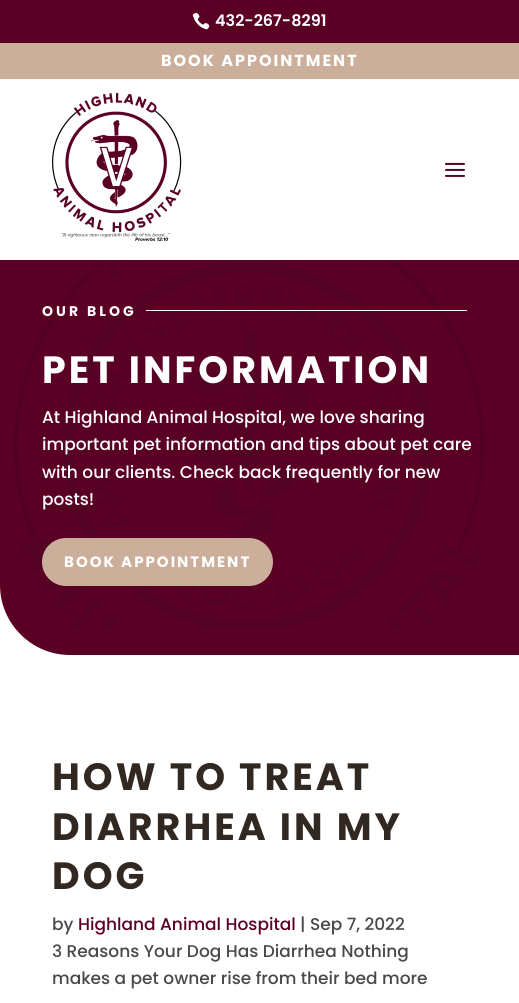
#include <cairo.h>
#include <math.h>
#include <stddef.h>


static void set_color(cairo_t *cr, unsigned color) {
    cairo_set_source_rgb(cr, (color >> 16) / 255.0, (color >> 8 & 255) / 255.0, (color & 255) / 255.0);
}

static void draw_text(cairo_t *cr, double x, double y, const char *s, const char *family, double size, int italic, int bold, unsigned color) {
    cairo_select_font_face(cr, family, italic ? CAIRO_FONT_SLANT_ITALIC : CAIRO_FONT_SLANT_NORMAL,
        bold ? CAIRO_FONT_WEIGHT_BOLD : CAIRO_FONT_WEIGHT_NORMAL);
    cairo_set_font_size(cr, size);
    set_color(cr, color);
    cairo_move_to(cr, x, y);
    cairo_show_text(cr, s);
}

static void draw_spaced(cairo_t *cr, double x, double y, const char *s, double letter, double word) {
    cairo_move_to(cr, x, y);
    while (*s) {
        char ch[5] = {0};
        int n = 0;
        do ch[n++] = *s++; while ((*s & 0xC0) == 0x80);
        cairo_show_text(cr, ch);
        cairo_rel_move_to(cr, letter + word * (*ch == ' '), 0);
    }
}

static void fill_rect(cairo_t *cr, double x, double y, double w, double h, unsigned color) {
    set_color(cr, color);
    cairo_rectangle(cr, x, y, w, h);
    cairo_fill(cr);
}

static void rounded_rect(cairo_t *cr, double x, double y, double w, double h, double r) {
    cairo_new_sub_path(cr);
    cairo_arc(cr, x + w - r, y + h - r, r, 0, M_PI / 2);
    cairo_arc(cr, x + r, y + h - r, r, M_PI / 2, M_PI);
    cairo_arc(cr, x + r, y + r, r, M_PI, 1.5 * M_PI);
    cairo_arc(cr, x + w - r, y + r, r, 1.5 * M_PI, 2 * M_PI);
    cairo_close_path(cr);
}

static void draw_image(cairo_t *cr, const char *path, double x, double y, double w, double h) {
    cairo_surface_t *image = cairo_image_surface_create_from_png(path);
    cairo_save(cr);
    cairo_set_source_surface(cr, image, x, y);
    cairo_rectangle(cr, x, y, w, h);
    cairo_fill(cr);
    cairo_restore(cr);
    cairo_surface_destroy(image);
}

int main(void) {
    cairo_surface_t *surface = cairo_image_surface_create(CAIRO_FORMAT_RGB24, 519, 1003);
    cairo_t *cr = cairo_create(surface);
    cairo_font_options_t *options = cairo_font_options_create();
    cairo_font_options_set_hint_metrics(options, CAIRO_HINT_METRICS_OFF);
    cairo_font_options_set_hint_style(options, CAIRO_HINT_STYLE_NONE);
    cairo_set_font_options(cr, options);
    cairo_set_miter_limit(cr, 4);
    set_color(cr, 0xFFFFFF);
    cairo_paint(cr);
    fill_rect(cr, 0, 0, 519, 43, 0x5B0025);
    draw_image(cr, "assets/img1.png", 192, 12, 18, 18);
    draw_text(cr, 215, 26, "432-267-8291", "Poppins SemiBold", 16, 0, 0, 0xFFFFFF);
    fill_rect(cr, 0, 43, 519, 36, 0xCCAF9B);
    cairo_select_font_face(cr, "Poppins", CAIRO_FONT_SLANT_NORMAL, CAIRO_FONT_WEIGHT_BOLD);
    set_color(cr, 0xFFFFFF);
    draw_spaced(cr, 161, 66, "BOOK APPOINTMENT", 2, 0);
    draw_image(cr, "assets/img2.png", 52, 92, 130, 150);
    draw_image(cr, "assets/img3.png", 445, 162, 20, 15);
    set_color(cr, 0x5B0025);
    cairo_new_path(cr);
    cairo_move_to(cr, 0, 260);
    cairo_line_to(cr, 519, 260);
    cairo_line_to(cr, 519, 655);
    cairo_line_to(cr, 70, 655);
    cairo_curve_to(cr, 31.5, 655, 0, 623.5, 0, 585);
    cairo_close_path(cr);
    cairo_fill(cr);
    draw_image(cr, "assets/img4.png", 13, 260, 472, 368);
    cairo_set_font_size(cr, 14);
    set_color(cr, 0xFFFFFF);
    draw_spaced(cr, 42, 316, "OUR BLOG", 3, 0);
    fill_rect(cr, 146, 310, 321, 1, 0xFFFFFF);
    cairo_set_font_size(cr, 38);
    draw_spaced(cr, 42, 383, "PET INFORMATION", 3, 0);
    draw_text(cr, 42, 423, "At Highland Animal Hospital, we love sharing", "Poppins Medium", 17, 0, 0, 0xFFFFFF);
    draw_text(cr, 42, 450, "important pet information and tips about pet care", "Poppins Medium", 17, 0, 0, 0xFFFFFF);
    draw_text(cr, 42, 478, "with our clients. Check back frequently for new", "Poppins Medium", 17, 0, 0, 0xFFFFFF);
    draw_text(cr, 42, 505, "posts!", "Poppins Medium", 17, 0, 0, 0xFFFFFF);
    set_color(cr, 0xCCAF9B);
    rounded_rect(cr, 45.5, 541.5, 224, 41, 20.5);
    cairo_fill_preserve(cr);
    cairo_set_line_width(cr, 7);
    cairo_stroke(cr);
    cairo_select_font_face(cr, "Poppins", CAIRO_FONT_SLANT_NORMAL, CAIRO_FONT_WEIGHT_BOLD);
    cairo_set_font_size(cr, 15);
    set_color(cr, 0xFFFFFF);
    draw_spaced(cr, 64, 567, "BOOK APPOINTMENT", 2, 0);
    cairo_set_font_size(cr, 38);
    set_color(cr, 0x312921);
    draw_spaced(cr, 52, 790, "HOW TO TREAT", 3, 0);
    draw_spaced(cr, 52, 840, "DIARRHEA IN MY", 3, 0);
    draw_spaced(cr, 52, 889, "DOG", 3, 0);
    draw_text(cr, 52, 930, "by", "Poppins Medium", 17, 0, 0, 0x494949);
    draw_text(cr, 78, 930, "Highland Animal Hospital", "Poppins Medium", 17, 0, 0, 0x5B0025);
    draw_text(cr, 300, 930, "| Sep 7, 2022", "Poppins Medium", 17, 0, 0, 0x494949);
    draw_text(cr, 52, 957, "3 Reasons Your Dog Has Diarrhea Nothing", "Poppins Medium", 17, 0, 0, 0x494949);
    draw_text(cr, 52, 984, "makes a pet owner rise from their bed more", "Poppins Medium", 17, 0, 0, 0x494949);
    cairo_surface_write_to_png(surface, "output.png");
    cairo_font_options_destroy(options);
    cairo_destroy(cr);
    cairo_surface_destroy(surface);
    return 0;
}
